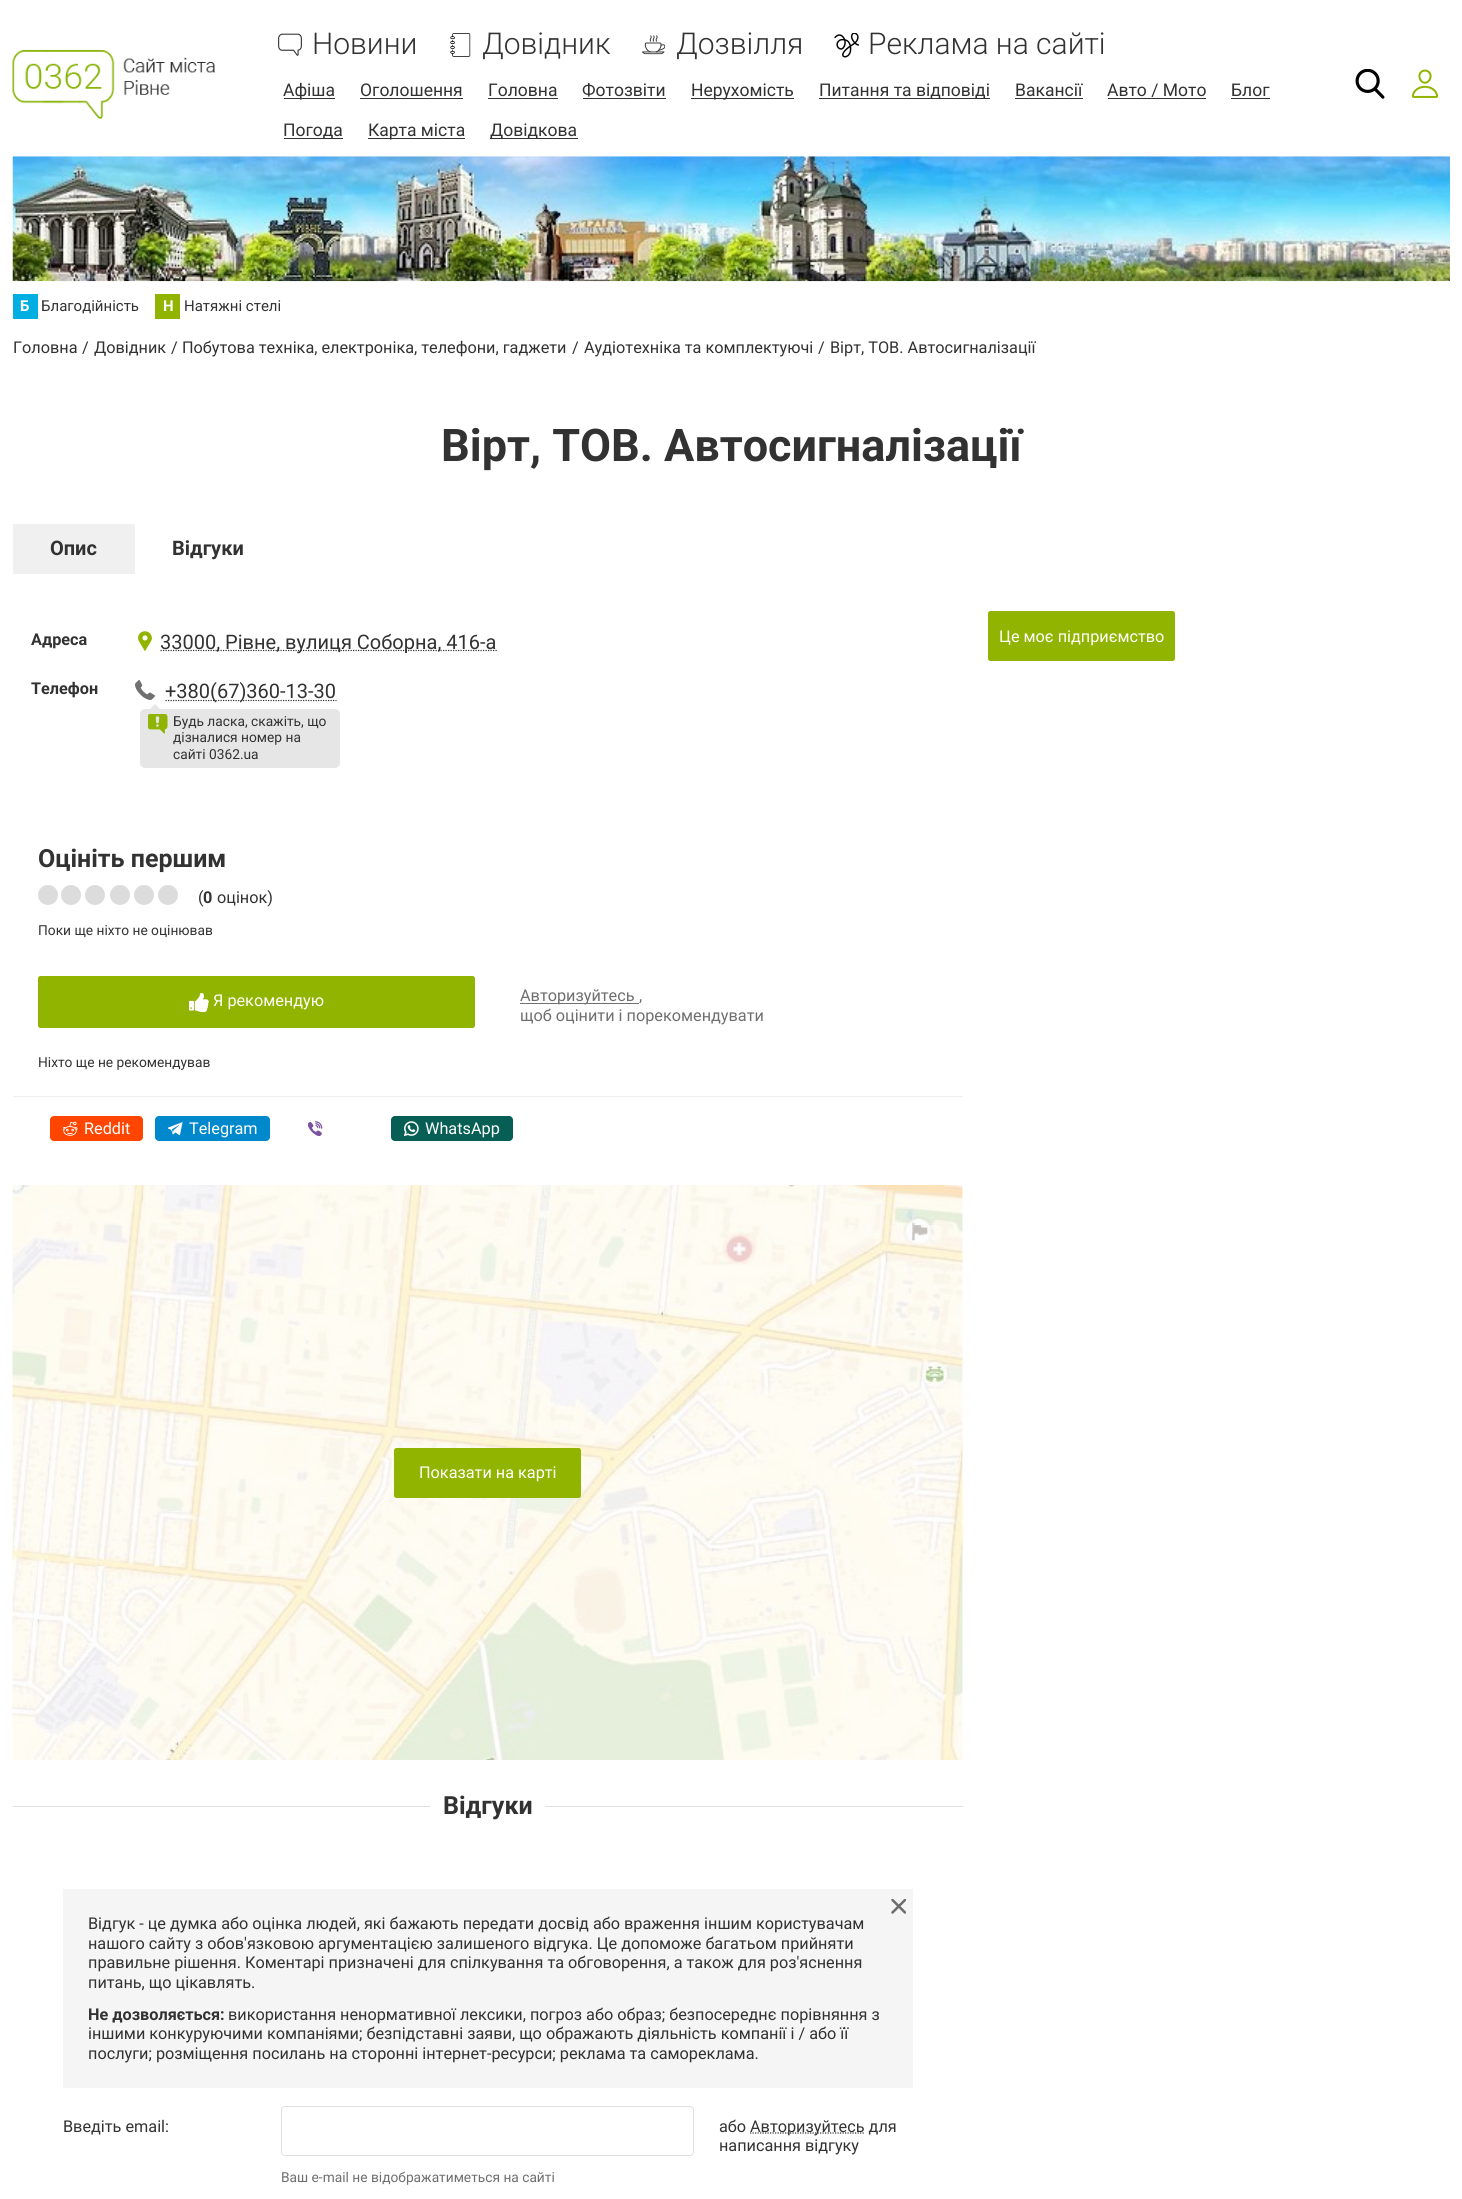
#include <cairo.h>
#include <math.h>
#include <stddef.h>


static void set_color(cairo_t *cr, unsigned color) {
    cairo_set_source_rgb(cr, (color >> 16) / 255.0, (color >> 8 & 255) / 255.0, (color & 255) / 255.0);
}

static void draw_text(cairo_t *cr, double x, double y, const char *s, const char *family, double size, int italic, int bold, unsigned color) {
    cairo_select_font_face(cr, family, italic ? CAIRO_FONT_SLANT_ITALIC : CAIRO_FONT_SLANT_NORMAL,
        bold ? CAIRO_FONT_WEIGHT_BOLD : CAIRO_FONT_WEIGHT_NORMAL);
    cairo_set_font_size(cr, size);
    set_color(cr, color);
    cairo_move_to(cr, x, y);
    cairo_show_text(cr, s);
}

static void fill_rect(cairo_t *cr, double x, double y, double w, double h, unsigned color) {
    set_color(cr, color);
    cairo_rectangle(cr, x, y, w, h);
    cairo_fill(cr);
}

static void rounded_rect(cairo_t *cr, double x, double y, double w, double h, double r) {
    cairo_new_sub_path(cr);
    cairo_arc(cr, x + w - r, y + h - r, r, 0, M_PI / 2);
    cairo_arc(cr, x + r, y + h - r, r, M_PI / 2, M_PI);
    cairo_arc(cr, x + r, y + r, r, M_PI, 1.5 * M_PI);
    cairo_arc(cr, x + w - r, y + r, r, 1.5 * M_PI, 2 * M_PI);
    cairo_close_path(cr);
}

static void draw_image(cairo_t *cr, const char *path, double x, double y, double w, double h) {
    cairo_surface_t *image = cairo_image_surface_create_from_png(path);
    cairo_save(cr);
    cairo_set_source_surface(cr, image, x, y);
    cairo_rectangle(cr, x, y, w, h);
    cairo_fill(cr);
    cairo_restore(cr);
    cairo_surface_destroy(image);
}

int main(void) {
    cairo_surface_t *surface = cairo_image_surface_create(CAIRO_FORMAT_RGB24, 1462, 2199);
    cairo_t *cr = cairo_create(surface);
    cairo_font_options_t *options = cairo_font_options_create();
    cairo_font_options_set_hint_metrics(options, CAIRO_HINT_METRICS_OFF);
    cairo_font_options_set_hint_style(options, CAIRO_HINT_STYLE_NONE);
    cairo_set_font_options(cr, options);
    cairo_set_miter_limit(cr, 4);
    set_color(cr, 0xFFFFFF);
    cairo_paint(cr);
    draw_image(cr, "assets/img1.png", 12, 50, 203, 69);
    draw_image(cr, "assets/img2.png", 278, 33, 24, 23);
    draw_text(cr, 312, 54, "Новини", "Roboto Light", 30, 0, 0, 0x323232);
    draw_image(cr, "assets/img3.png", 450, 33, 21, 24);
    draw_text(cr, 482, 54, "Довідник", "Roboto Light", 30, 0, 0, 0x323232);
    draw_image(cr, "assets/img4.png", 642, 35, 23, 20);
    draw_text(cr, 676, 54, "Дозвілля", "Roboto Light", 30, 0, 0, 0x323232);
    draw_image(cr, "assets/img5.png", 834, 33, 25, 25);
    draw_text(cr, 868, 54, "Реклама на сайті", "Roboto Light", 30, 0, 0, 0x323232);
    fill_rect(cr, 284, 98, 51, 1, 0x323232);
    draw_text(cr, 283, 96, "Афіша", "Roboto", 17.5, 0, 0, 0x323232);
    draw_text(cr, 360, 96, "Оголошення", "Roboto", 17.5, 0, 0, 0x323232);
    fill_rect(cr, 360, 98, 103, 1, 0x323232);
    draw_text(cr, 488, 96, "Головна", "Roboto", 17.5, 0, 0, 0x323232);
    fill_rect(cr, 488, 98, 70, 1, 0x323232);
    draw_text(cr, 582, 96, "Фотозвіти", "Roboto", 17.5, 0, 0, 0x323232);
    fill_rect(cr, 583, 98, 83, 1, 0x323232);
    fill_rect(cr, 691, 98, 103, 1, 0x323232);
    draw_text(cr, 691, 96, "Нерухомість", "Roboto", 17.5, 0, 0, 0x323232);
    fill_rect(cr, 819, 98, 171, 1, 0x323232);
    draw_text(cr, 819, 96, "Питання та відповіді", "Roboto", 17.5, 0, 0, 0x323232);
    draw_text(cr, 1015, 96, "Вакансії", "Roboto", 17.5, 0, 0, 0x323232);
    fill_rect(cr, 1015, 98, 68, 1, 0x323232);
    draw_text(cr, 1107, 96, "Авто / Мото", "Roboto", 17.5, 0, 0, 0x323232);
    fill_rect(cr, 1108, 98, 98, 1, 0x323232);
    draw_text(cr, 1231, 96, "Блог", "Roboto", 17.5, 0, 0, 0x323232);
    fill_rect(cr, 1231, 98, 39, 1, 0x323232);
    fill_rect(cr, 284, 138, 59, 1, 0x323232);
    draw_text(cr, 283, 136, "Погода", "Roboto", 17.5, 0, 0, 0x323232);
    fill_rect(cr, 368, 138, 97, 1, 0x323232);
    draw_text(cr, 368, 136, "Карта міста", "Roboto", 17.5, 0, 0, 0x323232);
    fill_rect(cr, 490, 138, 88, 1, 0x323232);
    draw_text(cr, 490, 136, "Довідкова", "Roboto", 17.5, 0, 0, 0x323232);
    draw_image(cr, "assets/img6.png", 1355, 69, 30, 30);
    draw_image(cr, "assets/img7.png", 1411, 69, 28, 29);
    draw_image(cr, "assets/img8.png", 12, 156, 1438, 126);
    fill_rect(cr, 13, 294, 25, 25, 0x00AFE1);
    draw_text(cr, 20, 311, "Б", "Roboto", 15, 0, 1, 0xFFFFFF);
    draw_text(cr, 41, 311, "Благодійність", "Roboto", 15, 0, 0, 0x323232);
    fill_rect(cr, 155, 294, 25, 25, 0x90B400);
    draw_text(cr, 163, 311, "Н", "Roboto", 15, 0, 1, 0xFFFFFF);
    draw_text(cr, 184, 311, "Натяжні стелі", "Roboto", 15, 0, 0, 0x323232);
    draw_text(cr, 13, 353, "Головна", "Roboto", 16.25, 0, 0, 0x323232);
    draw_text(cr, 82, 353, "/", "Roboto", 16.25, 0, 0, 0x323232);
    draw_text(cr, 94, 353, "Довідник", "Roboto", 16.25, 0, 0, 0x323232);
    draw_text(cr, 171, 353, "/", "Roboto", 16.25, 0, 0, 0x323232);
    draw_text(cr, 182, 353, "Побутова техніка, електроніка, телефони, гаджети", "Roboto", 16.25, 0, 0, 0x323232);
    draw_text(cr, 572, 353, "/", "Roboto", 16.25, 0, 0, 0x323232);
    draw_text(cr, 584, 353, "Аудіотехніка та комплектуючі", "Roboto", 16.25, 0, 0, 0x323232);
    draw_text(cr, 818, 353, "/", "Roboto", 16.25, 0, 0, 0x323232);
    draw_text(cr, 830, 353, "Вірт, ТОВ. Автосигналізації", "Roboto", 16.25, 0, 0, 0x323232);
    draw_text(cr, 441, 461, "Вірт, ТОВ. Автосигналізації", "Roboto", 45, 0, 1, 0x323232);
    fill_rect(cr, 13, 524, 122, 50, 0xF0F0F0);
    draw_text(cr, 50, 555, "Опис", "Roboto", 20, 0, 1, 0x323232);
    draw_text(cr, 172, 555, "Відгуки", "Roboto", 20, 0, 1, 0x323232);
    draw_text(cr, 31, 645, "Адреса", "Roboto", 16.25, 0, 1, 0x323232);
    draw_image(cr, "assets/img9.png", 138, 631, 14, 20);
    cairo_new_path(cr);
    cairo_move_to(cr, 160.5, 650.5);
    cairo_line_to(cr, 497, 650.5);
    cairo_set_line_width(cr, 1.2);
    cairo_set_dash(cr, (double[]){1.25, 1.25}, 2, 0);
    cairo_stroke(cr);
    draw_text(cr, 160, 649, "33000, Рівне, вулиця Соборна, 416-а", "Roboto", 20, 0, 0, 0x323232);
    draw_text(cr, 31, 694, "Телефон", "Roboto", 16.25, 0, 1, 0x323232);
    draw_image(cr, "assets/img10.png", 135, 680, 20, 20);
    cairo_new_path(cr);
    cairo_move_to(cr, 165.5, 700.5);
    cairo_line_to(cr, 336.5, 700.5);
    cairo_stroke(cr);
    draw_text(cr, 165, 698, "+380(67)360-13-30", "Roboto", 20, 0, 0, 0x323232);
    set_color(cr, 0xE6E6E6);
    rounded_rect(cr, 140, 709, 200, 59, 5);
    cairo_fill(cr);
    cairo_new_path(cr);
    cairo_move_to(cr, 160, 709);
    cairo_line_to(cr, 150, 709);
    cairo_line_to(cr, 155, 704);
    cairo_close_path(cr);
    cairo_fill(cr);
    draw_image(cr, "assets/img11.png", 148, 714, 20, 20);
    draw_text(cr, 173, 726, "Будь ласка, скажіть, що", "Roboto", 13.75, 0, 0, 0x323232);
    draw_text(cr, 173, 742, "дізналися номер на", "Roboto", 13.75, 0, 0, 0x323232);
    draw_text(cr, 173, 759, "сайті 0362.ua", "Roboto", 13.75, 0, 0, 0x323232);
    draw_text(cr, 38, 867, "Оцініть першим", "Roboto", 25, 0, 1, 0x323232);
    set_color(cr, 0xDCDCDC);
    cairo_new_path(cr);
    cairo_arc(cr, 48, 895, 10, 0, 2 * M_PI);
    cairo_fill(cr);
    cairo_arc(cr, 71, 895, 10, 0, 2 * M_PI);
    cairo_fill(cr);
    cairo_arc(cr, 95, 895, 10, 0, 2 * M_PI);
    cairo_fill(cr);
    cairo_arc(cr, 120, 895, 10, 0, 2 * M_PI);
    cairo_fill(cr);
    cairo_arc(cr, 144, 895, 10, 0, 2 * M_PI);
    cairo_fill(cr);
    cairo_arc(cr, 168, 895, 10, 0, 2 * M_PI);
    cairo_fill(cr);
    draw_text(cr, 198, 903, "(", "Roboto", 16.25, 0, 0, 0x323232);
    draw_text(cr, 203, 903, "0", "Roboto", 16.25, 0, 1, 0x323232);
    draw_text(cr, 217, 903, "оцінок)", "Roboto", 16.25, 0, 0, 0x323232);
    draw_text(cr, 38, 935, "Поки ще ніхто не оцінював", "Roboto", 13.75, 0, 0, 0x323232);
    set_color(cr, 0x90B400);
    rounded_rect(cr, 38, 976, 437, 52, 2.5);
    cairo_fill(cr);
    draw_image(cr, "assets/img12.png", 189, 993, 20, 20);
    draw_text(cr, 213, 1006, "Я рекомендую", "Roboto", 16.25, 0, 0, 0xFFFFFF);
    draw_text(cr, 38, 1067, "Ніхто ще не рекомендував", "Roboto", 13.75, 0, 0, 0x323232);
    fill_rect(cr, 520, 1003, 119, 1, 0x707070);
    draw_text(cr, 520, 1001, "Авторизуйтесь", "Roboto", 16.25, 0, 0, 0x6F6F6F);
    draw_text(cr, 639, 1001, ",", "Roboto", 16.25, 0, 0, 0x6F6F6F);
    draw_text(cr, 520, 1021, "щоб оцінити і порекомендувати", "Roboto", 16.25, 0, 0, 0x6F6F6F);
    fill_rect(cr, 13, 1096, 950, 1, 0xF0F0F0);
    set_color(cr, 0xFF4500);
    rounded_rect(cr, 50, 1116, 93, 25, 4);
    cairo_fill(cr);
    draw_image(cr, "assets/img13.png", 63, 1121, 15, 15);
    draw_text(cr, 84, 1134, "Reddit", "Roboto", 16.25, 0, 0, 0xFFFFFF);
    set_color(cr, 0x0088CC);
    rounded_rect(cr, 155, 1116, 115, 25, 4);
    cairo_fill(cr);
    draw_image(cr, "assets/img14.png", 168, 1122, 15, 14);
    draw_text(cr, 189, 1134, "Telegram", "Roboto", 16.25, 0, 0, 0xFFFFFF);
    draw_image(cr, "assets/img15.png", 308, 1121, 15, 15);
    set_color(cr, 0x075E54);
    rounded_rect(cr, 391, 1116, 122, 25, 4);
    cairo_fill(cr);
    draw_image(cr, "assets/img16.png", 404, 1121, 15, 15);
    draw_text(cr, 425, 1134, "WhatsApp", "Roboto", 16.25, 0, 0, 0xFFFFFF);
    draw_image(cr, "assets/img17.png", 12, 1185, 951, 575);
    set_color(cr, 0x90B400);
    rounded_rect(cr, 394, 1448, 187, 50, 2.5);
    cairo_fill(cr);
    draw_text(cr, 419, 1478, "Показати на карті", "Roboto", 16.25, 0, 0, 0xFFFFFF);
    set_color(cr, 0x90B400);
    rounded_rect(cr, 988, 611, 187, 50, 2.5);
    cairo_fill(cr);
    draw_text(cr, 999, 642, "Це моє підприємство", "Roboto", 16.25, 0, 0, 0xFFFFFF);
    fill_rect(cr, 13, 1806, 417, 1, 0xE0E0E0);
    draw_text(cr, 443, 1814, "Відгуки", "Roboto", 25, 0, 1, 0x323232);
    fill_rect(cr, 545, 1806, 418, 1, 0xE0E0E0);
    fill_rect(cr, 63, 1889, 850, 199, 0xF5F5F5);
    draw_image(cr, "assets/img18.png", 891, 1899, 15, 15);
    draw_text(cr, 88, 1929, "Відгук - це думка або оцінка людей, які бажають передати досвід або враження іншим користувачам", "Roboto", 16.25, 0, 0, 0x323232);
    draw_text(cr, 88, 1949, "нашого сайту з обов'язковою аргументацією залишеного відгука. Це допоможе багатьом прийняти", "Roboto", 16.25, 0, 0, 0x323232);
    draw_text(cr, 88, 1968, "правильне рішення. Коментарі призначені для спілкування та обговорення, а також для роз'яснення", "Roboto", 16.25, 0, 0, 0x323232);
    draw_text(cr, 88, 1988, "питань, що цікавлять.", "Roboto", 16.25, 0, 0, 0x323232);
    draw_text(cr, 88, 2020, "Не дозволяється:", "Roboto", 16.25, 0, 1, 0x323232);
    draw_text(cr, 228, 2020, "використання ненормативної лексики, погроз або образ; безпосереднє порівняння з", "Roboto", 16.25, 0, 0, 0x323232);
    draw_text(cr, 88, 2039, "іншими конкуруючими компаніями; безпідставні заяви, що ображають діяльність компанії і / або її", "Roboto", 16.25, 0, 0, 0x323232);
    draw_text(cr, 88, 2059, "послуги; розміщення посилань на сторонні інтернет-ресурси; реклама та самореклама.", "Roboto", 16.25, 0, 0, 0x323232);
    draw_text(cr, 63, 2132, "Введіть email:", "Roboto", 16.25, 0, 0, 0x323232);
    draw_text(cr, 719, 2132, "або", "Roboto", 16.25, 0, 0, 0x323232);
    cairo_new_path(cr);
    cairo_move_to(cr, 750, 2133);
    cairo_line_to(cr, 864.5, 2133);
    cairo_stroke(cr);
    draw_text(cr, 750, 2132, "Авторизуйтесь для", "Roboto", 16.25, 0, 0, 0x323232);
    draw_text(cr, 719, 2151, "написання відгуку", "Roboto", 16.25, 0, 0, 0x323232);
    rounded_rect(cr, 281.5, 2106.5, 412, 49, 3.5);
    set_color(cr, 0xE0E0E0);
    cairo_set_line_width(cr, 1);
    cairo_set_dash(cr, NULL, 0, 0);
    cairo_stroke(cr);
    draw_text(cr, 281, 2182, "Ваш e-mail не відображатиметься на сайті", "Roboto", 13.75, 0, 0, 0x6F6F6F);
    cairo_surface_write_to_png(surface, "output.png");
    cairo_font_options_destroy(options);
    cairo_destroy(cr);
    cairo_surface_destroy(surface);
    return 0;
}
